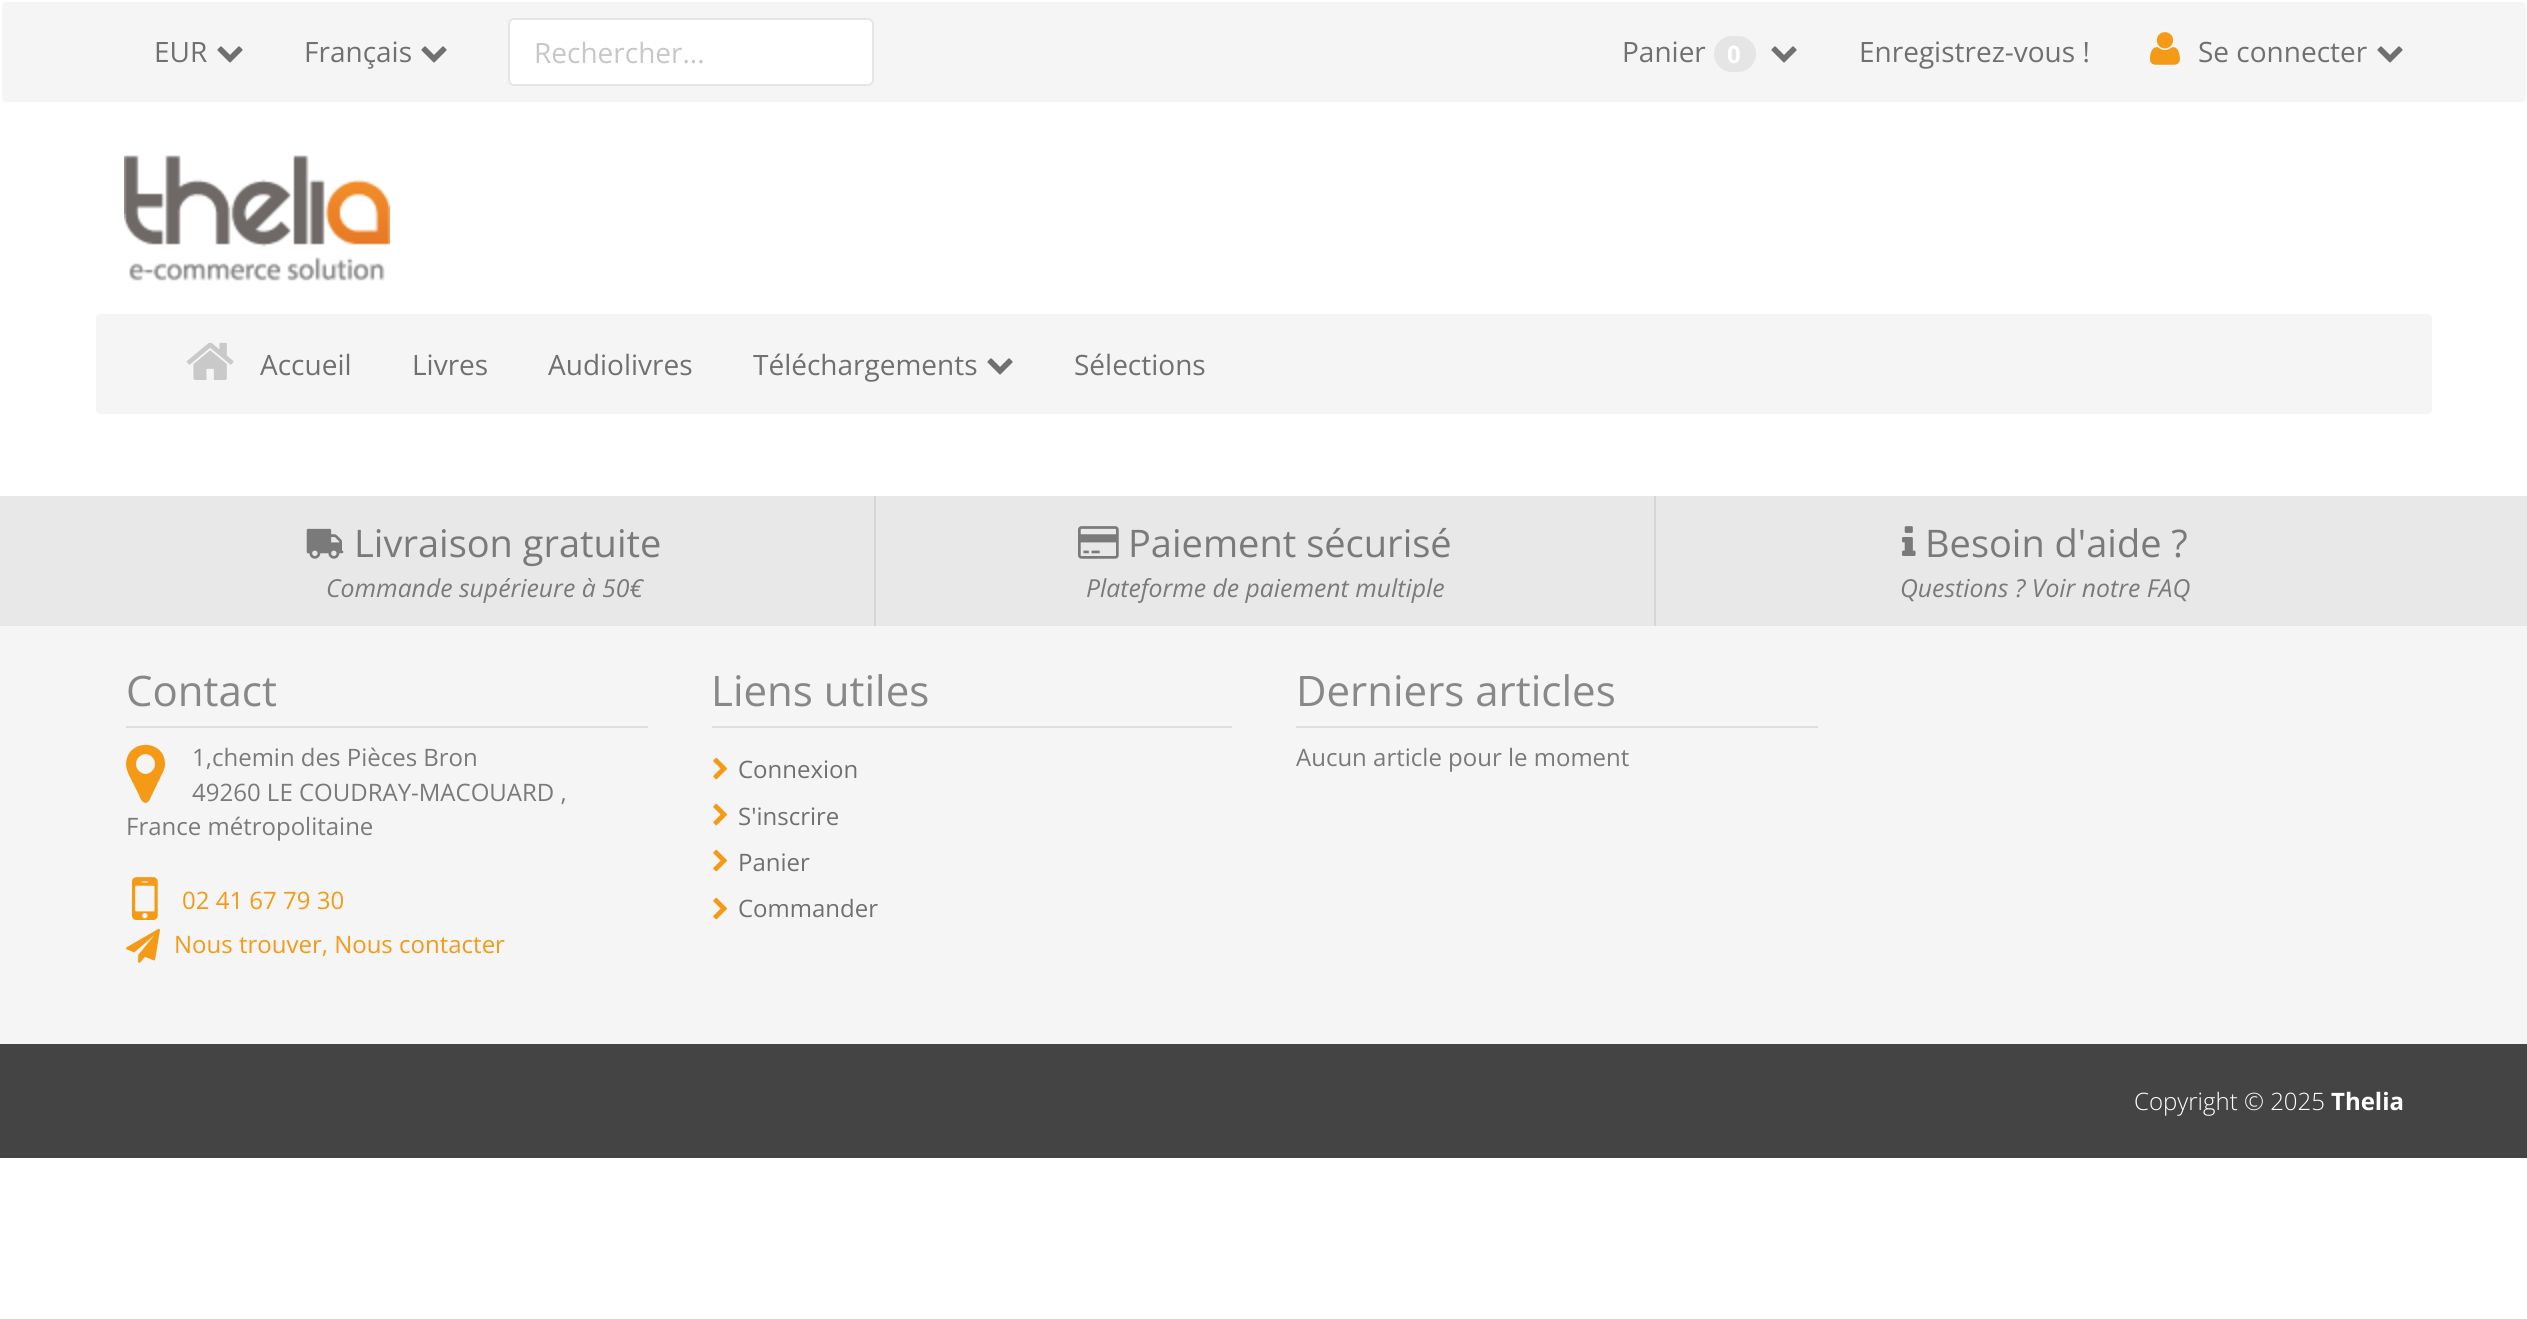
#include <cairo.h>
#include <math.h>
#include <stddef.h>


static void set_color(cairo_t *cr, unsigned color) {
    cairo_set_source_rgb(cr, (color >> 16) / 255.0, (color >> 8 & 255) / 255.0, (color & 255) / 255.0);
}

static void draw_text(cairo_t *cr, double x, double y, const char *s, const char *family, double size, int italic, int bold, unsigned color) {
    cairo_select_font_face(cr, family, italic ? CAIRO_FONT_SLANT_ITALIC : CAIRO_FONT_SLANT_NORMAL,
        bold ? CAIRO_FONT_WEIGHT_BOLD : CAIRO_FONT_WEIGHT_NORMAL);
    cairo_set_font_size(cr, size);
    set_color(cr, color);
    cairo_move_to(cr, x, y);
    cairo_show_text(cr, s);
}

static void fill_rect(cairo_t *cr, double x, double y, double w, double h, unsigned color) {
    set_color(cr, color);
    cairo_rectangle(cr, x, y, w, h);
    cairo_fill(cr);
}

static void rounded_rect(cairo_t *cr, double x, double y, double w, double h, double r) {
    cairo_new_sub_path(cr);
    cairo_arc(cr, x + w - r, y + h - r, r, 0, M_PI / 2);
    cairo_arc(cr, x + r, y + h - r, r, M_PI / 2, M_PI);
    cairo_arc(cr, x + r, y + r, r, M_PI, 1.5 * M_PI);
    cairo_arc(cr, x + w - r, y + r, r, 1.5 * M_PI, 2 * M_PI);
    cairo_close_path(cr);
}

static void draw_image(cairo_t *cr, const char *path, double x, double y, double w, double h) {
    cairo_surface_t *image = cairo_image_surface_create_from_png(path);
    cairo_save(cr);
    cairo_set_source_surface(cr, image, x, y);
    cairo_rectangle(cr, x, y, w, h);
    cairo_fill(cr);
    cairo_restore(cr);
    cairo_surface_destroy(image);
}

int main(void) {
    cairo_surface_t *surface = cairo_image_surface_create(CAIRO_FORMAT_RGB24, 2527, 1319);
    cairo_t *cr = cairo_create(surface);
    cairo_font_options_t *options = cairo_font_options_create();
    cairo_font_options_set_hint_metrics(options, CAIRO_HINT_METRICS_OFF);
    cairo_font_options_set_hint_style(options, CAIRO_HINT_STYLE_NONE);
    cairo_set_font_options(cr, options);
    cairo_set_miter_limit(cr, 4);
    set_color(cr, 0xFFFFFF);
    cairo_paint(cr);
    set_color(cr, 0xF5F5F5);
    rounded_rect(cr, 1, 1, 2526, 102, 5);
    cairo_fill_preserve(cr);
    set_color(cr, 0xFFFFFF);
    cairo_stroke(cr);
    draw_text(cr, 154, 62, "EUR", "Open Sans", 28, 0, 0, 0x707070);
    draw_image(cr, "assets/img1.png", 217, 46, 26, 17);
    draw_text(cr, 304, 62, "Français", "Open Sans", 28, 0, 0, 0x707070);
    draw_image(cr, "assets/img1.png", 421, 46, 26, 17);
    set_color(cr, 0xFFFFFF);
    rounded_rect(cr, 509, 19, 364, 66, 5);
    cairo_fill_preserve(cr);
    set_color(cr, 0xE5E5E5);
    cairo_stroke(cr);
    draw_text(cr, 534, 63, "Rechercher...", "Open Sans", 28, 0, 0, 0xC7C7C7);
    draw_text(cr, 1622, 62, "Panier", "Open Sans", 28, 0, 0, 0x707070);
    set_color(cr, 0xE5E5E5);
    rounded_rect(cr, 1714, 36, 42, 36, 18);
    cairo_fill(cr);
    draw_text(cr, 1727, 63, "0", "Open Sans", 24, 0, 1, 0xFFFFFF);
    draw_image(cr, "assets/img1.png", 1771, 46, 26, 17);
    draw_text(cr, 1859, 62, "Enregistrez-vous !", "Open Sans", 28, 0, 0, 0x707070);
    draw_image(cr, "assets/img2.png", 2150, 32, 30, 33);
    draw_text(cr, 2198, 62, "Se connecter", "Open Sans", 28, 0, 0, 0x707070);
    draw_image(cr, "assets/img1.png", 2377, 46, 26, 17);
    draw_image(cr, "assets/img3.png", 124, 155, 266, 126);
    set_color(cr, 0xF5F5F5);
    rounded_rect(cr, 95, 313, 2338, 102, 5);
    cairo_fill_preserve(cr);
    set_color(cr, 0xFFFFFF);
    cairo_stroke(cr);
    draw_image(cr, "assets/img4.png", 186, 342, 48, 38);
    draw_text(cr, 260, 375, "Accueil", "Open Sans", 28, 0, 0, 0x707070);
    draw_text(cr, 412, 375, "Livres", "Open Sans", 28, 0, 0, 0x707070);
    draw_text(cr, 548, 375, "Audiolivres", "Open Sans", 28, 0, 0, 0x707070);
    draw_text(cr, 753, 375, "Téléchargements", "Open Sans", 28, 0, 0, 0x707070);
    draw_image(cr, "assets/img1.png", 987, 358, 26, 17);
    draw_text(cr, 1074, 375, "Sélections", "Open Sans", 28, 0, 0, 0x707070);
    fill_rect(cr, 0, 496, 2527, 130, 0xE8E8E8);
    draw_image(cr, "assets/img5.png", 306, 528, 38, 31);
    draw_text(cr, 354, 557, "Livraison gratuite", "Open Sans", 38, 0, 0, 0x7A7A7A);
    draw_text(cr, 326, 597, "Commande supérieure à 50€", "Open Sans", 24.75, 1, 0, 0x7A7A7A);
    fill_rect(cr, 874, 496, 2, 130, 0xD6D6D6);
    draw_image(cr, "assets/img6.png", 1078, 526, 41, 33);
    draw_text(cr, 1128, 557, "Paiement sécurisé", "Open Sans", 38, 0, 0, 0x7A7A7A);
    draw_text(cr, 1086, 597, "Plateforme de paiement multiple", "Open Sans", 24.75, 1, 0, 0x7A7A7A);
    fill_rect(cr, 1654, 496, 2, 130, 0xD6D6D6);
    draw_image(cr, "assets/img7.png", 1902, 526, 14, 30);
    draw_text(cr, 1925, 557, "Besoin d'aide ?", "Open Sans", 38, 0, 0, 0x7A7A7A);
    draw_text(cr, 1900, 597, "Questions ? Voir notre FAQ", "Open Sans", 24.75, 1, 0, 0x7A7A7A);
    fill_rect(cr, 0, 626, 2527, 418, 0xF5F5F5);
    fill_rect(cr, 126, 726, 522, 2, 0xDFDFDF);
    draw_text(cr, 126, 706, "Contact", "Open Sans", 42, 0, 0, 0x888888);
    set_color(cr, 0xF49A17);
    cairo_new_path(cr);
    cairo_move_to(cr, 152, 771);
    cairo_curve_to(cr, 161, 762, 148, 748, 139, 757);
    cairo_curve_to(cr, 130, 766, 143, 780, 152, 771);
    cairo_close_path(cr);
    cairo_move_to(cr, 165, 764);
    cairo_curve_to(cr, 165, 769, 163, 772, 161, 776);
    cairo_line_to(cr, 149, 801);
    cairo_line_to(cr, 146, 803);
    cairo_curve_to(cr, 142, 803, 140, 798, 139, 795);
    cairo_line_to(cr, 134, 785);
    cairo_curve_to(cr, 131, 779, 126, 771, 126, 764);
    cairo_curve_to(cr, 127, 738, 165, 739, 165, 764);
    cairo_close_path(cr);
    cairo_fill(cr);
    draw_text(cr, 192, 766, "1,chemin des Pièces Bron", "Open Sans", 24, 0, 0, 0x7A7A7A);
    draw_text(cr, 192, 801, "49260 LE COUDRAY-MACOUARD ,", "Open Sans", 24, 0, 0, 0x7A7A7A);
    draw_text(cr, 126, 835, "France métropolitaine", "Open Sans", 24, 0, 0, 0x7A7A7A);
    draw_image(cr, "assets/img8.png", 132, 877, 26, 43);
    draw_text(cr, 182, 909, "02 41 67 79 30", "Open Sans", 24, 0, 0, 0xF49A17);
    draw_image(cr, "assets/img9.png", 126, 928, 34, 35);
    draw_text(cr, 174, 953, "Nous trouver, Nous contacter", "Open Sans", 24, 0, 0, 0xF49A17);
    fill_rect(cr, 712, 726, 520, 2, 0xDFDFDF);
    draw_text(cr, 711, 706, "Liens utiles", "Open Sans", 42, 0, 0, 0x888888);
    draw_image(cr, "assets/img10.png", 713, 757, 14, 23);
    draw_text(cr, 738, 778, "Connexion", "Open Sans", 24, 0, 0, 0x707070);
    draw_image(cr, "assets/img10.png", 713, 803, 14, 23);
    draw_text(cr, 738, 825, "S'inscrire", "Open Sans", 24, 0, 0, 0x707070);
    draw_image(cr, "assets/img10.png", 713, 849, 14, 23);
    draw_text(cr, 738, 871, "Panier", "Open Sans", 24, 0, 0, 0x707070);
    draw_image(cr, "assets/img10.png", 713, 897, 14, 23);
    draw_text(cr, 738, 917, "Commander", "Open Sans", 24, 0, 0, 0x707070);
    fill_rect(cr, 1296, 726, 522, 2, 0xDFDFDF);
    draw_text(cr, 1296, 706, "Derniers articles", "Open Sans", 42, 0, 0, 0x888888);
    draw_text(cr, 1296, 766, "Aucun article pour le moment", "Open Sans", 24, 0, 0, 0x7A7A7A);
    fill_rect(cr, 0, 1044, 2527, 114, 0x444444);
    draw_text(cr, 2134, 1110, "Copyright © 2025", "Open Sans Light", 24, 0, 0, 0xFFFFFF);
    draw_text(cr, 2331, 1110, "Thelia", "Open Sans", 24, 0, 1, 0xFFFFFF);
    cairo_surface_write_to_png(surface, "output.png");
    cairo_font_options_destroy(options);
    cairo_destroy(cr);
    cairo_surface_destroy(surface);
    return 0;
}
